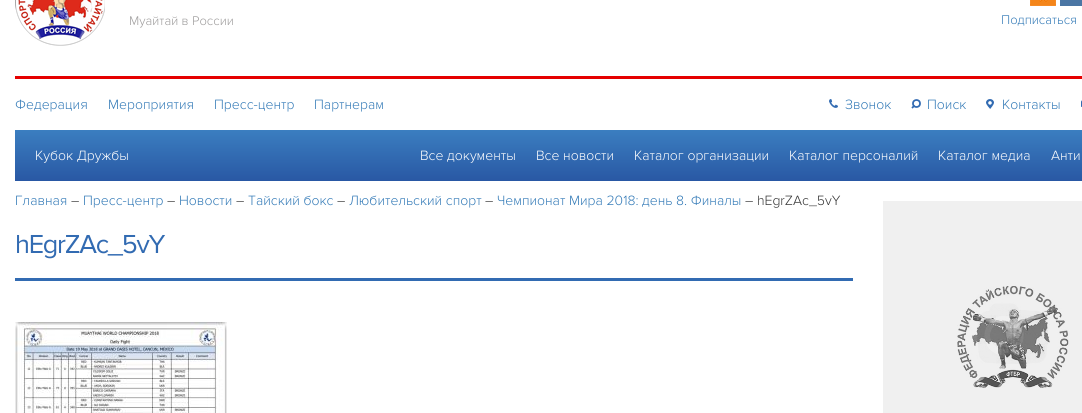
#include <cairo.h>
#include <math.h>
#include <stddef.h>


static void set_color(cairo_t *cr, unsigned color) {
    cairo_set_source_rgb(cr, (color >> 16) / 255.0, (color >> 8 & 255) / 255.0, (color & 255) / 255.0);
}

static void draw_text(cairo_t *cr, double x, double y, const char *s, const char *family, double size, int italic, int bold, unsigned color) {
    cairo_select_font_face(cr, family, italic ? CAIRO_FONT_SLANT_ITALIC : CAIRO_FONT_SLANT_NORMAL,
        bold ? CAIRO_FONT_WEIGHT_BOLD : CAIRO_FONT_WEIGHT_NORMAL);
    cairo_set_font_size(cr, size);
    set_color(cr, color);
    cairo_move_to(cr, x, y);
    cairo_show_text(cr, s);
}

static void draw_spaced(cairo_t *cr, double x, double y, const char *s, double letter, double word) {
    cairo_move_to(cr, x, y);
    while (*s) {
        char ch[5] = {0};
        int n = 0;
        do ch[n++] = *s++; while ((*s & 0xC0) == 0x80);
        cairo_show_text(cr, ch);
        cairo_rel_move_to(cr, letter + word * (*ch == ' '), 0);
    }
}

static void fill_rect(cairo_t *cr, double x, double y, double w, double h, unsigned color) {
    set_color(cr, color);
    cairo_rectangle(cr, x, y, w, h);
    cairo_fill(cr);
}

static void draw_image(cairo_t *cr, const char *path, double x, double y, double w, double h) {
    cairo_surface_t *image = cairo_image_surface_create_from_png(path);
    cairo_save(cr);
    cairo_set_source_surface(cr, image, x, y);
    cairo_rectangle(cr, x, y, w, h);
    cairo_fill(cr);
    cairo_restore(cr);
    cairo_surface_destroy(image);
}

int main(void) {
    cairo_surface_t *surface = cairo_image_surface_create(CAIRO_FORMAT_RGB24, 1082, 413);
    cairo_t *cr = cairo_create(surface);
    cairo_font_options_t *options = cairo_font_options_create();
    cairo_font_options_set_hint_metrics(options, CAIRO_HINT_METRICS_OFF);
    cairo_font_options_set_hint_style(options, CAIRO_HINT_STYLE_NONE);
    cairo_set_font_options(cr, options);
    cairo_set_miter_limit(cr, 4);
    cairo_pattern_t *gradient;
    set_color(cr, 0xFFFFFF);
    cairo_paint(cr);
    draw_image(cr, "assets/img1.png", 15, 0, 90, 46);
    draw_text(cr, 129, 25, "Муайтай в России", "Proxima Nova Light", 13, 0, 0, 0x9D9B9B);
    draw_image(cr, "assets/img2.png", 1030, 0, 26, 6);
    fill_rect(cr, 1060, 0, 22, 6, 0x4B76A4);
    draw_text(cr, 1001, 24, "Подписаться", "Proxima Nova Light", 13, 0, 0, 0x337AB7);
    fill_rect(cr, 15, 76, 1067, 3, 0xE50000);
    draw_text(cr, 15, 109, "Федерация", "Proxima Nova Light", 14, 0, 0, 0x337AB7);
    draw_text(cr, 108, 109, "Мероприятия", "Proxima Nova Light", 14, 0, 0, 0x337AB7);
    draw_text(cr, 214, 109, "Пресс-центр", "Proxima Nova Light", 14, 0, 0, 0x337AB7);
    draw_text(cr, 314, 109, "Партнерам", "Proxima Nova Light", 14, 0, 0, 0x337AB7);
    draw_image(cr, "assets/img3.png", 829, 99, 9, 9);
    draw_text(cr, 845, 109, "Звонок", "Proxima Nova Light", 14, 0, 0, 0x337AB7);
    cairo_new_path(cr);
    cairo_arc(cr, 916.5, 103.5, 3.5, 0, 2 * M_PI);
    set_color(cr, 0x326BB2);
    cairo_set_line_width(cr, 1.8);
    cairo_stroke(cr);
    cairo_new_path(cr);
    cairo_move_to(cr, 912, 108);
    cairo_line_to(cr, 914.5, 105.5);
    cairo_stroke(cr);
    draw_text(cr, 927, 109, "Поиск", "Proxima Nova Light", 14, 0, 0, 0x337AB7);
    draw_image(cr, "assets/img4.png", 986, 99, 8, 10);
    draw_text(cr, 1002, 109, "Контакты", "Proxima Nova Light", 14, 0, 0, 0x337AB7);
    draw_image(cr, "assets/img5.png", 1081, 100, 1, 7);
    gradient = cairo_pattern_create_linear(580, 130, 580, 181);
    cairo_pattern_add_color_stop_rgba(gradient, 0, 0.231, 0.494, 0.753, 1);
    cairo_pattern_add_color_stop_rgba(gradient, 1, 0.161, 0.345, 0.643, 1);
    cairo_set_source(cr, gradient);
    cairo_pattern_destroy(gradient);
    cairo_rectangle(cr, 15, 130, 1067, 51);
    cairo_fill(cr);
    draw_text(cr, 35, 160, "Кубок Дружбы", "Proxima Nova Light", 14, 0, 0, 0xFFFFFF);
    draw_text(cr, 420, 160, "Все документы", "Proxima Nova Light", 14, 0, 0, 0xFFFFFF);
    draw_text(cr, 536, 160, "Все новости", "Proxima Nova Light", 14, 0, 0, 0xFFFFFF);
    draw_text(cr, 634, 160, "Каталог организации", "Proxima Nova Light", 14, 0, 0, 0xFFFFFF);
    draw_text(cr, 789, 160, "Каталог персоналий", "Proxima Nova Light", 14, 0, 0, 0xFFFFFF);
    draw_text(cr, 938, 160, "Каталог медиа", "Proxima Nova Light", 14, 0, 0, 0xFFFFFF);
    draw_text(cr, 1051, 160, "Анти", "Proxima Nova Light", 14, 0, 0, 0xFFFFFF);
    draw_text(cr, 15, 205, "Главная", "Proxima Nova Light", 14, 0, 0, 0x337AB7);
    draw_text(cr, 71, 205, "–", "Proxima Nova Light", 14, 0, 0, 0x333333);
    draw_text(cr, 83, 205, "Пресс-центр", "Proxima Nova Light", 14, 0, 0, 0x337AB7);
    draw_text(cr, 167, 205, "–", "Proxima Nova Light", 14, 0, 0, 0x333333);
    draw_text(cr, 179, 205, "Новости", "Proxima Nova Light", 14, 0, 0, 0x337AB7);
    draw_text(cr, 236, 205, "–", "Proxima Nova Light", 14, 0, 0, 0x333333);
    draw_text(cr, 248, 205, "Тайский бокс", "Proxima Nova Light", 14, 0, 0, 0x337AB7);
    draw_text(cr, 337, 205, "–", "Proxima Nova Light", 14, 0, 0, 0x333333);
    draw_text(cr, 349, 205, "Любительский спорт", "Proxima Nova Light", 14, 0, 0, 0x337AB7);
    draw_text(cr, 485, 205, "–", "Proxima Nova Light", 14, 0, 0, 0x333333);
    draw_text(cr, 497, 205, "Чемпионат Мира 2018: день 8. Финалы", "Proxima Nova Light", 14, 0, 0, 0x337AB7);
    draw_text(cr, 745, 205, "– hEgrZAc_5vY", "Proxima Nova Light", 14, 0, 0, 0x333333);
    cairo_select_font_face(cr, "Proxima Nova", CAIRO_FONT_SLANT_NORMAL, CAIRO_FONT_WEIGHT_NORMAL);
    cairo_set_font_size(cr, 27);
    set_color(cr, 0x326BB2);
    draw_spaced(cr, 15, 253, "hEgrZAc_5vY", -1.25, 0);
    fill_rect(cr, 15, 278, 838, 3, 0x326BB2);
    draw_image(cr, "assets/img6.png", 15, 322, 212, 91);
    draw_image(cr, "assets/img7.png", 883, 201, 199, 212);
    cairo_surface_write_to_png(surface, "output.png");
    cairo_font_options_destroy(options);
    cairo_destroy(cr);
    cairo_surface_destroy(surface);
    return 0;
}
